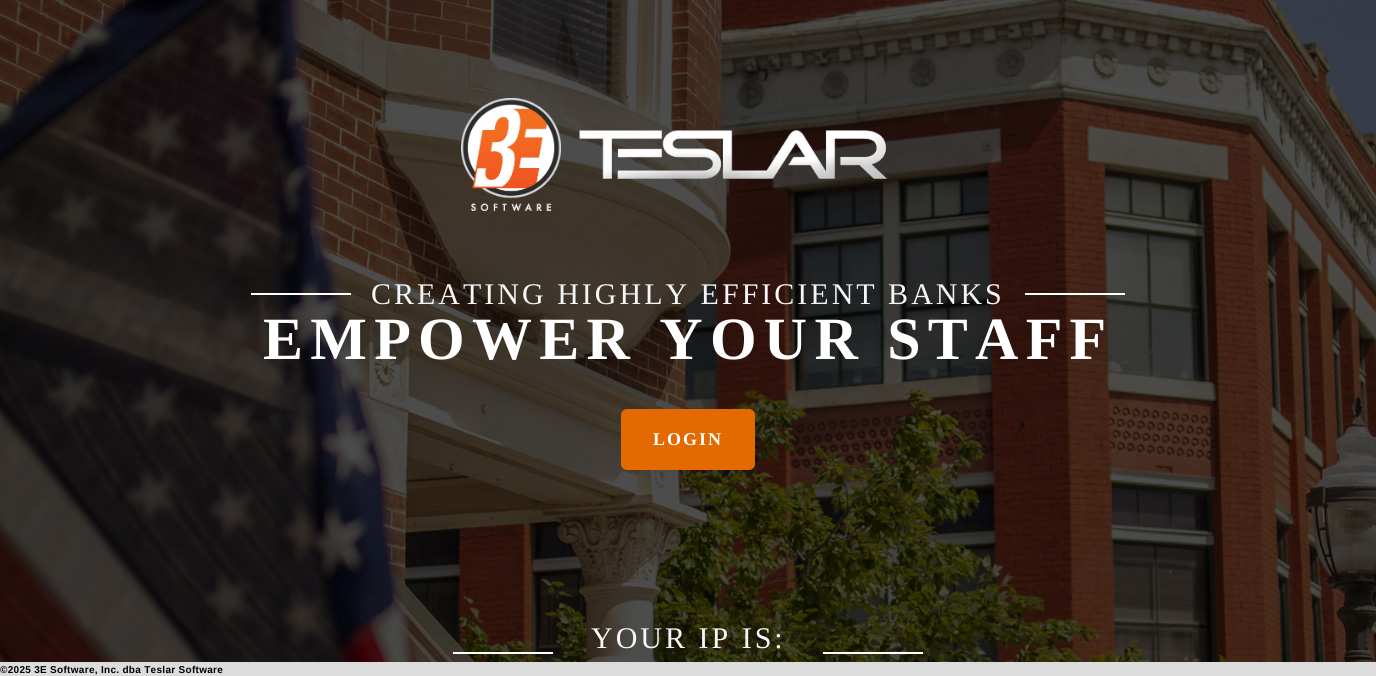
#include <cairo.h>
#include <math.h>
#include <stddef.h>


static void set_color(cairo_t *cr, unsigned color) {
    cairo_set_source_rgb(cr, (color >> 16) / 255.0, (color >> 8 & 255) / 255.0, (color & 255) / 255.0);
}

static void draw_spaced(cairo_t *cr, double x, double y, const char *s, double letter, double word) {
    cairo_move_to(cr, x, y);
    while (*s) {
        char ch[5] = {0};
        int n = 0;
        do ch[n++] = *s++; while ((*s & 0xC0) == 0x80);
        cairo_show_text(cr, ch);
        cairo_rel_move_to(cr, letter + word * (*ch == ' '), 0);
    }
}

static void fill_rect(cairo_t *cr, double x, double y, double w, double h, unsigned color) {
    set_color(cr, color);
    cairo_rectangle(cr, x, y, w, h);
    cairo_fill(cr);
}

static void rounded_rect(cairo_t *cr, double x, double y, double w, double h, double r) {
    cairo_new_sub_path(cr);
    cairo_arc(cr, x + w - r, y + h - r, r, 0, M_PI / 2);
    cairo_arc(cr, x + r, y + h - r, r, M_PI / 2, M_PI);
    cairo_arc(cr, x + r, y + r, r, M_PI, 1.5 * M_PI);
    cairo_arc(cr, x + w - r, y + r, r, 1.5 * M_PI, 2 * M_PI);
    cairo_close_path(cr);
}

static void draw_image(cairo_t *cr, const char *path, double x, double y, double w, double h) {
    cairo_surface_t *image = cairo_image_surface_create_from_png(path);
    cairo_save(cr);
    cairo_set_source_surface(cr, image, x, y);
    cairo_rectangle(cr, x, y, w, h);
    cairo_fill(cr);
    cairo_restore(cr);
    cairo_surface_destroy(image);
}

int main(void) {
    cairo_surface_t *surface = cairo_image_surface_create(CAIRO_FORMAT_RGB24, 1376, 676);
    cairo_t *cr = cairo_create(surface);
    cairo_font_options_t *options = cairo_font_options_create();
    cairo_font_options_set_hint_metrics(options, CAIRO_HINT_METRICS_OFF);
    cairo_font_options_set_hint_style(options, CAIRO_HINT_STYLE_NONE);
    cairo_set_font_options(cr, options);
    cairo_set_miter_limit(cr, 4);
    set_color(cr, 0xFFFFFF);
    cairo_paint(cr);
    draw_image(cr, "assets/img1.png", 0, 0, 1376, 662);
    draw_image(cr, "assets/img2.png", 461, 98, 100, 113);
    draw_image(cr, "assets/img3.png", 579, 130, 309, 49);
    fill_rect(cr, 251, 293, 100, 2, 0xFFFFFF);
    cairo_select_font_face(cr, "Liberation Serif", CAIRO_FONT_SLANT_NORMAL, CAIRO_FONT_WEIGHT_NORMAL);
    cairo_set_font_size(cr, 30);
    set_color(cr, 0xF6F6F6);
    draw_spaced(cr, 371, 304, "CREATING HIGHLY EFFICIENT BANKS", 3, 0);
    fill_rect(cr, 1025, 293, 100, 2, 0xFFFFFF);
    cairo_select_font_face(cr, "Liberation Serif", CAIRO_FONT_SLANT_NORMAL, CAIRO_FONT_WEIGHT_BOLD);
    cairo_set_font_size(cr, 60);
    draw_spaced(cr, 263, 359, "EMPOWER YOUR STAFF", 7.25, 0);
    set_color(cr, 0xE46900);
    rounded_rect(cr, 622, 410, 132, 59, 5);
    cairo_fill_preserve(cr);
    cairo_stroke(cr);
    cairo_set_font_size(cr, 18);
    set_color(cr, 0xFFFFFF);
    draw_spaced(cr, 653, 445, "LOGIN", 2, 0);
    cairo_select_font_face(cr, "Liberation Serif", CAIRO_FONT_SLANT_NORMAL, CAIRO_FONT_WEIGHT_NORMAL);
    cairo_set_font_size(cr, 30);
    set_color(cr, 0xF6F6F6);
    draw_spaced(cr, 591, 648, "YOUR IP IS:", 3, 0);
    fill_rect(cr, 453, 652, 100, 2, 0xFFFFFF);
    fill_rect(cr, 823, 652, 100, 2, 0xFFFFFF);
    fill_rect(cr, 0, 662, 1376, 14, 0xDCDCDC);
    cairo_select_font_face(cr, "Liberation Sans", CAIRO_FONT_SLANT_NORMAL, CAIRO_FONT_WEIGHT_BOLD);
    cairo_set_font_size(cr, 10);
    set_color(cr, 0x000000);
    draw_spaced(cr, 0, 673, "©2025 3E Software, Inc. dba Teslar Software", 0.3, 0);
    cairo_surface_write_to_png(surface, "output.png");
    cairo_font_options_destroy(options);
    cairo_destroy(cr);
    cairo_surface_destroy(surface);
    return 0;
}
